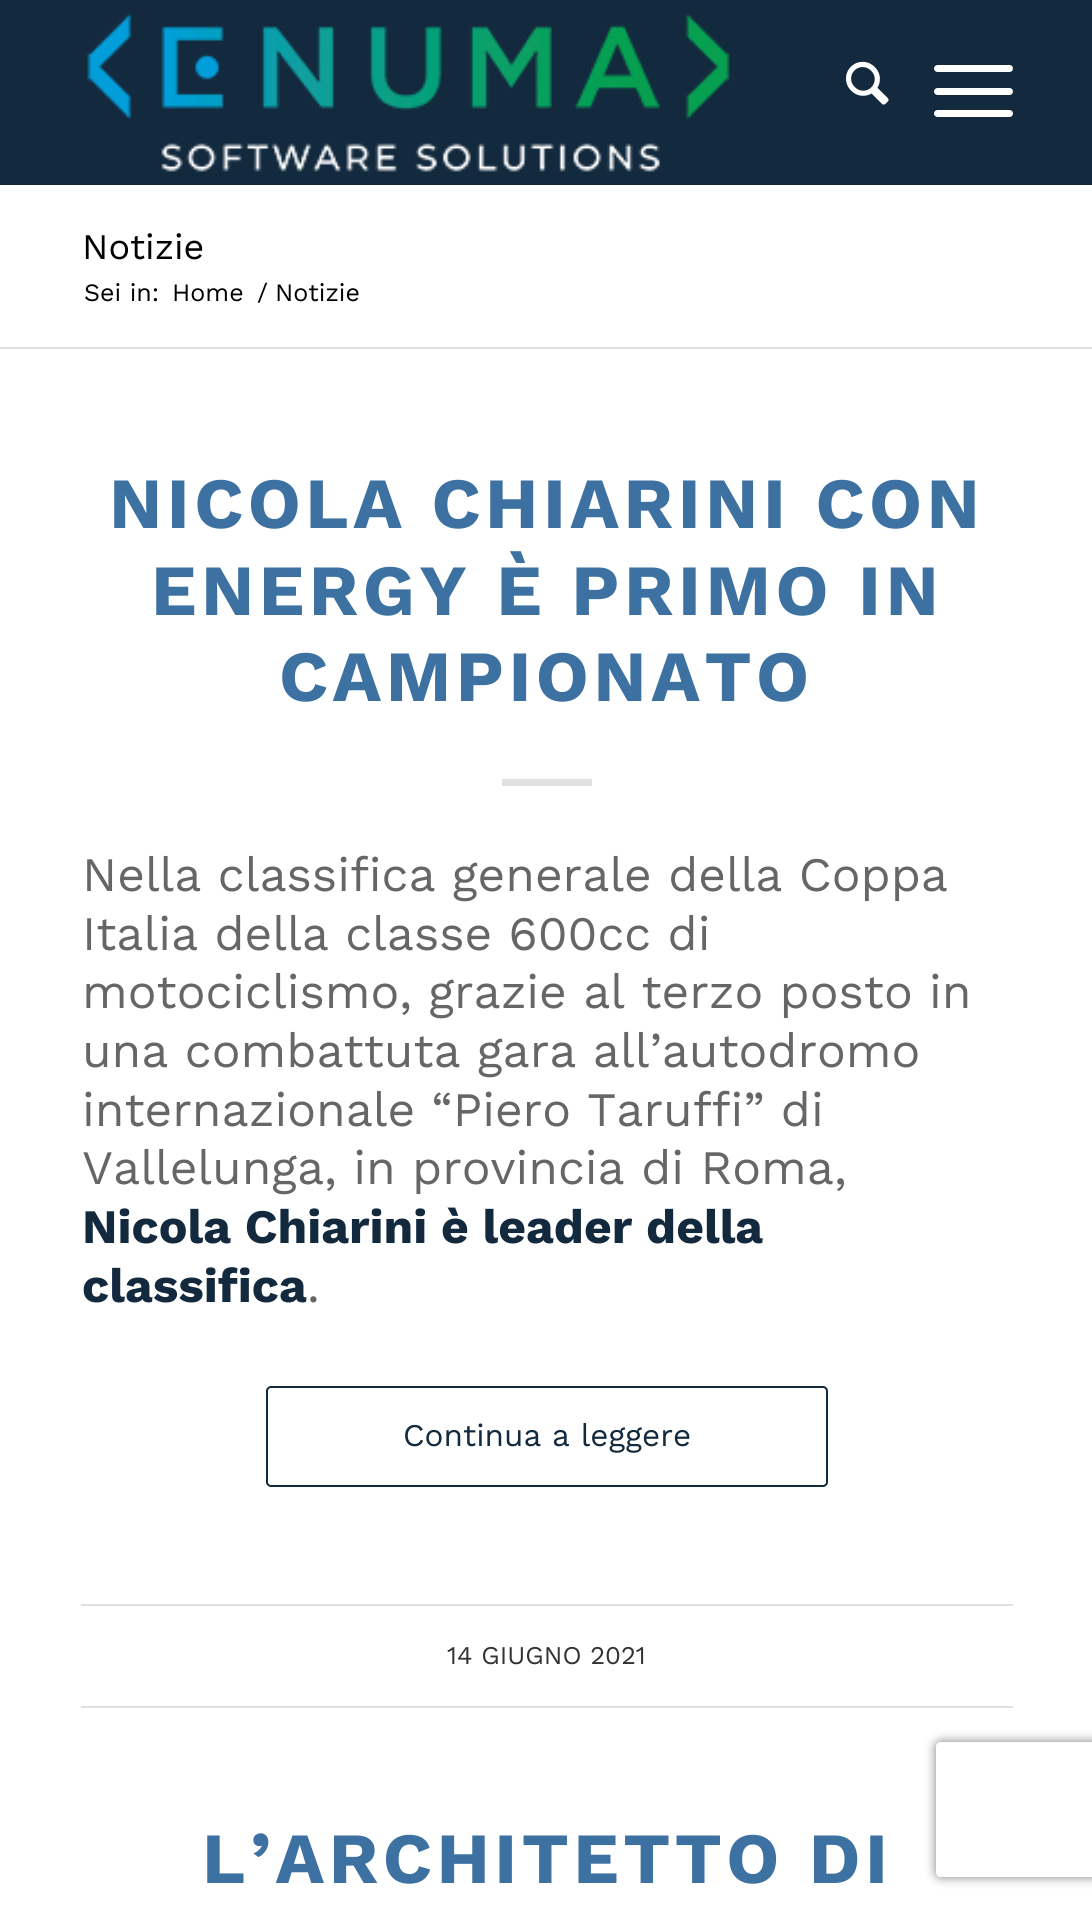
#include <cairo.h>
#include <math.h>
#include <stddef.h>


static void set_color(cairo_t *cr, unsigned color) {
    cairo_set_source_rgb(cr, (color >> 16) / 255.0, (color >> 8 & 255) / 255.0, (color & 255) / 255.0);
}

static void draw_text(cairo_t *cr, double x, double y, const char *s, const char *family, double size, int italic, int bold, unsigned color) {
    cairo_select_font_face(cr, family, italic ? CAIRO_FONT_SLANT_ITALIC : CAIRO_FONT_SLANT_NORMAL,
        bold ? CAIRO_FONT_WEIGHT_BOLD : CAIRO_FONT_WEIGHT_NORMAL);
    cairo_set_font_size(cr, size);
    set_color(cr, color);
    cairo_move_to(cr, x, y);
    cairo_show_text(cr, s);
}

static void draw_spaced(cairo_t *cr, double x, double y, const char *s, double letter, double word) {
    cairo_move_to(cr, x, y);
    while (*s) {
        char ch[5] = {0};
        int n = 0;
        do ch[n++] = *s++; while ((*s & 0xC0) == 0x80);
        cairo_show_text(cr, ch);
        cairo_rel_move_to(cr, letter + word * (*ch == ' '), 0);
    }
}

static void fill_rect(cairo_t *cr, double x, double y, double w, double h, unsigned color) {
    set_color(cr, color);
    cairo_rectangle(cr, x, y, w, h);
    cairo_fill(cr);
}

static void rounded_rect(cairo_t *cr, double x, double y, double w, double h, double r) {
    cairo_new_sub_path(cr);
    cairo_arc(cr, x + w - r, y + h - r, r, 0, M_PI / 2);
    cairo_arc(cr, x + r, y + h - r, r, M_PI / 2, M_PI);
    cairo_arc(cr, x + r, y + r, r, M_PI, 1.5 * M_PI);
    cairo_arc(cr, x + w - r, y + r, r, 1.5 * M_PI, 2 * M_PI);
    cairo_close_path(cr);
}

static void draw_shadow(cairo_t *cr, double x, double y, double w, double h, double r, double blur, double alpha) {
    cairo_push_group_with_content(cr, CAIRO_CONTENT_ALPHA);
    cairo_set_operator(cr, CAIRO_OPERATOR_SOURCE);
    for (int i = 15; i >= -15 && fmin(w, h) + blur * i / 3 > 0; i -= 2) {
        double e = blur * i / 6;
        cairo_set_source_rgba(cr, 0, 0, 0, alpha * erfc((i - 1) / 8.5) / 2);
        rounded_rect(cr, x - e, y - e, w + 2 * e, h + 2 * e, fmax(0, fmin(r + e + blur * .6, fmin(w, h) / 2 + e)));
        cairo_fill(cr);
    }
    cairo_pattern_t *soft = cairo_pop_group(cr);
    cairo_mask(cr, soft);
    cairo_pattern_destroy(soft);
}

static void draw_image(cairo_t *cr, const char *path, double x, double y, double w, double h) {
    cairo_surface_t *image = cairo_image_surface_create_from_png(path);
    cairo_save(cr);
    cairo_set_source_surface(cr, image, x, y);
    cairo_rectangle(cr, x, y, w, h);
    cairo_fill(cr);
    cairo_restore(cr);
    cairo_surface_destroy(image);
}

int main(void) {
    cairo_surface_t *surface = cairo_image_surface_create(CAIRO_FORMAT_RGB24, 1092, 1907);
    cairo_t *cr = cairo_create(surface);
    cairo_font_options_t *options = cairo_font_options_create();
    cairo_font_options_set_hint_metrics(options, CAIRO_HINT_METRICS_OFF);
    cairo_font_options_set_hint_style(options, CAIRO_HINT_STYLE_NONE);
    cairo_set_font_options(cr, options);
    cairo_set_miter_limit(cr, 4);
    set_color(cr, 0xFFFFFF);
    cairo_paint(cr);
    fill_rect(cr, 0, 0, 1092, 185, 0x132A3E);
    draw_image(cr, "assets/img1.png", 87, 13, 643, 159);
    draw_image(cr, "assets/img2.png", 846, 61, 43, 44);
    set_color(cr, 0xFFFFFF);
    rounded_rect(cr, 934, 88, 79, 7, 3.5);
    cairo_fill(cr);
    rounded_rect(cr, 934, 65, 79, 7, 3.5);
    cairo_fill(cr);
    rounded_rect(cr, 934, 110, 79, 7, 3.5);
    cairo_fill(cr);
    draw_text(cr, 82, 259, "Notizie", "Work Sans", 36, 0, 0, 0x000000);
    draw_text(cr, 84, 301, "Sei in:", "Work Sans", 25, 0, 0, 0x000000);
    draw_text(cr, 172, 301, "Home", "Work Sans", 25, 0, 0, 0x000000);
    draw_text(cr, 257, 301, "/", "Work Sans", 25, 0, 0, 0x000000);
    draw_text(cr, 275, 301, "Notizie", "Work Sans", 25, 0, 0, 0x000000);
    fill_rect(cr, 0, 347, 1092, 2, 0xE1E1E1);
    cairo_select_font_face(cr, "Work Sans", CAIRO_FONT_SLANT_NORMAL, CAIRO_FONT_WEIGHT_BOLD);
    cairo_set_font_size(cr, 72);
    set_color(cr, 0x3D71A1);
    draw_spaced(cr, 109, 528, "NICOLA CHIARINI CON", 4.5, 0);
    draw_spaced(cr, 151, 615, "ENERGY È PRIMO IN", 4.5, 0);
    draw_spaced(cr, 279, 701, "CAMPIONATO", 4.5, 0);
    fill_rect(cr, 502, 779, 90, 7, 0xE1E1E1);
    draw_text(cr, 82, 891, "Nella classifica generale della Coppa", "Work Sans", 48, 0, 0, 0x666666);
    draw_text(cr, 82, 950, "Italia della classe 600cc di", "Work Sans", 48, 0, 0, 0x666666);
    draw_text(cr, 82, 1008, "motociclismo, grazie al terzo posto in", "Work Sans", 48, 0, 0, 0x666666);
    draw_text(cr, 82, 1067, "una combattuta gara all’autodromo", "Work Sans", 48, 0, 0, 0x666666);
    draw_text(cr, 82, 1126, "internazionale “Piero Taruffi” di", "Work Sans", 48, 0, 0, 0x666666);
    draw_text(cr, 82, 1184, "Vallelunga, in provincia di Roma,", "Work Sans", 48, 0, 0, 0x666666);
    draw_text(cr, 82, 1243, "Nicola Chiarini è leader della", "Work Sans", 48, 0, 1, 0x132A3E);
    draw_text(cr, 82, 1302, "classifica", "Work Sans", 48, 0, 1, 0x132A3E);
    draw_text(cr, 307, 1302, ".", "Work Sans", 48, 0, 0, 0x666666);
    rounded_rect(cr, 267, 1387, 560, 99, 4);
    set_color(cr, 0x132A3E);
    cairo_stroke(cr);
    draw_text(cr, 403, 1446, "Continua a leggere", "Work Sans", 31.5, 0, 0, 0x132A3E);
    fill_rect(cr, 81, 1604, 932, 2, 0xE1E1E1);
    fill_rect(cr, 81, 1706, 932, 2, 0xE1E1E1);
    draw_text(cr, 447, 1664, "14 GIUGNO 2021", "Work Sans", 25.5, 0, 0, 0x333333);
    cairo_select_font_face(cr, "Work Sans", CAIRO_FONT_SLANT_NORMAL, CAIRO_FONT_WEIGHT_BOLD);
    cairo_set_font_size(cr, 72);
    set_color(cr, 0x3D71A1);
    draw_spaced(cr, 202, 1883, "L’ARCHITETTO DI", 4.5, 0);
    cairo_save(cr);
    cairo_set_fill_rule(cr, CAIRO_FILL_RULE_EVEN_ODD);
    cairo_new_path(cr);
    cairo_move_to(cr, 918, 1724);
    cairo_line_to(cr, 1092, 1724);
    cairo_line_to(cr, 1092, 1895);
    cairo_line_to(cr, 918, 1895);
    cairo_close_path(cr);
    cairo_move_to(cr, 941, 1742);
    cairo_line_to(cr, 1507, 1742);
    cairo_curve_to(cr, 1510, 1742, 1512, 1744, 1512, 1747);
    cairo_line_to(cr, 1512, 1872);
    cairo_curve_to(cr, 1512, 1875, 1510, 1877, 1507, 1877);
    cairo_line_to(cr, 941, 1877);
    cairo_curve_to(cr, 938, 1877, 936, 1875, 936, 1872);
    cairo_line_to(cr, 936, 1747);
    cairo_curve_to(cr, 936, 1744, 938, 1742, 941, 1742);
    cairo_close_path(cr);
    cairo_clip(cr);
    set_color(cr, 0x808080);
    draw_shadow(cr, 936, 1742, 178, 135, 5, 5.5, 1);
    cairo_restore(cr);
    cairo_surface_write_to_png(surface, "output.png");
    cairo_font_options_destroy(options);
    cairo_destroy(cr);
    cairo_surface_destroy(surface);
    return 0;
}
